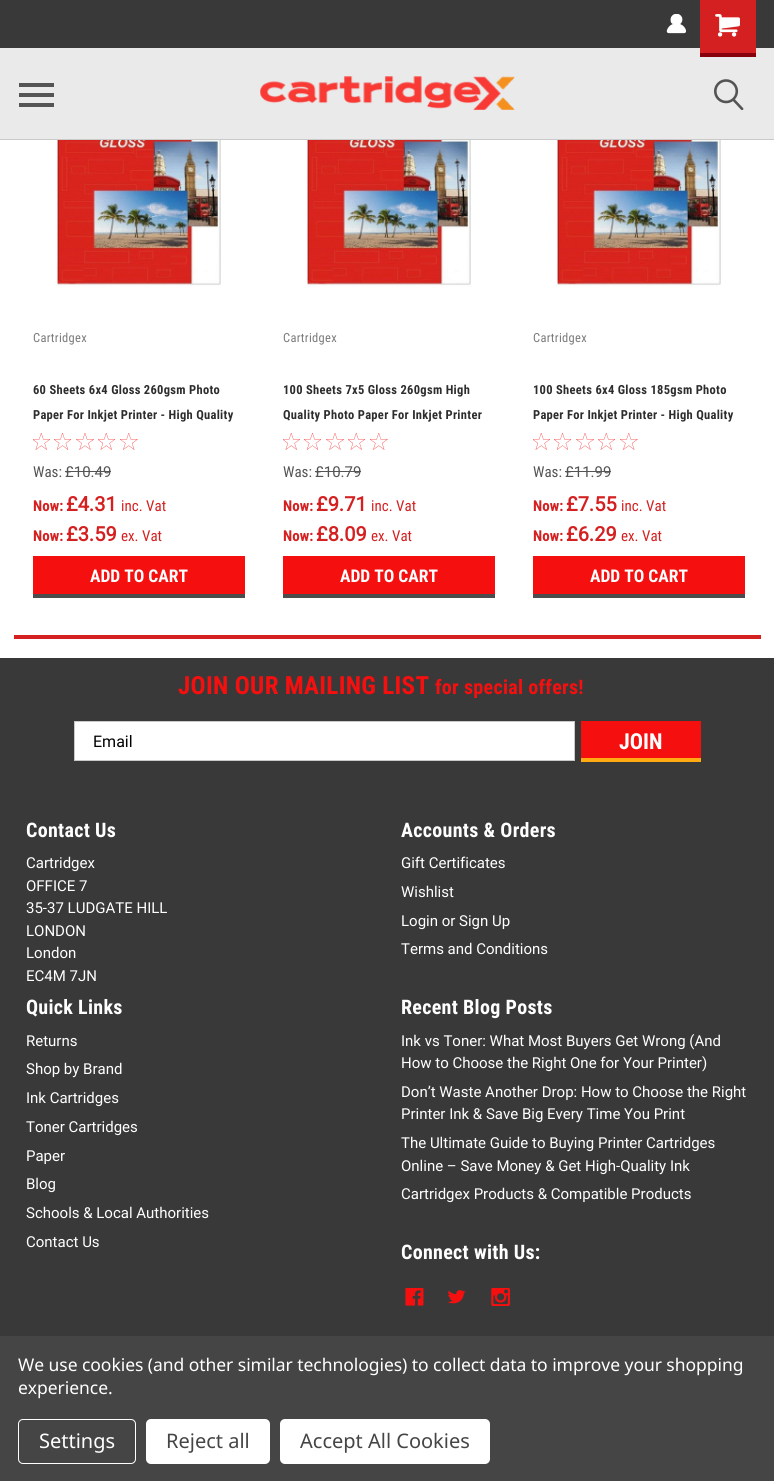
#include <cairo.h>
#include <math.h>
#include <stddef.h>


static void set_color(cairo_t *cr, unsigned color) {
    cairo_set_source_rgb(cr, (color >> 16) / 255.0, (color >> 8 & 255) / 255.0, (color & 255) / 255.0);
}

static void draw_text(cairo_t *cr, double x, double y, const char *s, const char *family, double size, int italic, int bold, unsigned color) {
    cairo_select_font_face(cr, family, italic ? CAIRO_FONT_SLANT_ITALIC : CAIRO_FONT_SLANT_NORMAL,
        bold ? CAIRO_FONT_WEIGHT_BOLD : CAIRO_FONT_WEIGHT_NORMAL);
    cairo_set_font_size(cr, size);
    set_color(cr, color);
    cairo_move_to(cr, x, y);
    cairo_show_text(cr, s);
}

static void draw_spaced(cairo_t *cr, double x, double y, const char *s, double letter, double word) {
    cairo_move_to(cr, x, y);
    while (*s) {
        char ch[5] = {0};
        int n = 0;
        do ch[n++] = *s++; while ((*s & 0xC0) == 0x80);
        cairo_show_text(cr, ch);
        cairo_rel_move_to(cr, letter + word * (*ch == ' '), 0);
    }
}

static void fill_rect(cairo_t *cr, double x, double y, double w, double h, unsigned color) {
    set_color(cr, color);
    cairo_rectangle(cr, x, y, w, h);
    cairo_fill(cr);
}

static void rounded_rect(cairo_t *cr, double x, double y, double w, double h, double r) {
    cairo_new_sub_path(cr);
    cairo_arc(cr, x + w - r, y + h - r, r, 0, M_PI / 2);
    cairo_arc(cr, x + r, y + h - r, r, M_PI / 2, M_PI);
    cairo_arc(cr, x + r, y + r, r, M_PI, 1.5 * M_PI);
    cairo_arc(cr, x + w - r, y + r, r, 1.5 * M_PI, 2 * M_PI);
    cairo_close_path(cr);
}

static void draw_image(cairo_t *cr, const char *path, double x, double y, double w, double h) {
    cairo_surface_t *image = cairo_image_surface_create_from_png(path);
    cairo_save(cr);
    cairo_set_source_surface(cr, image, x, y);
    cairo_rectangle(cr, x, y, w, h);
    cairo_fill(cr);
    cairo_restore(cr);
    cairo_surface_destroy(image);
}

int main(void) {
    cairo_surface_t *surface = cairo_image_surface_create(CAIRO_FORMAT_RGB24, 774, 1481);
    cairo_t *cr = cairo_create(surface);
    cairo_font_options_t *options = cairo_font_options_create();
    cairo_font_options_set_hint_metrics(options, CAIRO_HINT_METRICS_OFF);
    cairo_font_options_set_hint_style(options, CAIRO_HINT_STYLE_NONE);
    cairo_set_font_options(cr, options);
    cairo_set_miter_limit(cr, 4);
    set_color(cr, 0xFFFFFF);
    cairo_paint(cr);
    fill_rect(cr, 0, 139, 774, 1, 0xCAC9C9);
    fill_rect(cr, 0, 0, 774, 48, 0x393939);
    draw_image(cr, "assets/img1.png", 666, 14, 20, 20);
    fill_rect(cr, 0, 48, 774, 91, 0xEAEAEA);
    fill_rect(cr, 700, 0, 56, 53, 0xD42020);
    fill_rect(cr, 700, 53, 56, 4, 0x860109);
    draw_image(cr, "assets/img2.png", 715, 14, 25, 23);
    fill_rect(cr, 19, 93, 35, 4, 0x545454);
    fill_rect(cr, 19, 83, 35, 4, 0x545454);
    fill_rect(cr, 19, 103, 35, 4, 0x545454);
    draw_image(cr, "assets/img3.png", 260, 76, 255, 34);
    draw_image(cr, "assets/img4.png", 714, 79, 30, 31);
    fill_rect(cr, 14, 635, 747, 4, 0xD42020);
    draw_image(cr, "assets/img5.png", 56, 140, 165, 147);
    cairo_select_font_face(cr, "Roboto Condensed", CAIRO_FONT_SLANT_NORMAL, CAIRO_FONT_WEIGHT_NORMAL);
    cairo_set_font_size(cr, 12.5);
    set_color(cr, 0x7B7B7B);
    draw_spaced(cr, 33, 342, "Cartridgex", 0.3, 0);
    cairo_select_font_face(cr, "Roboto Condensed", CAIRO_FONT_SLANT_NORMAL, CAIRO_FONT_WEIGHT_BOLD);
    set_color(cr, 0x2D2D2D);
    draw_spaced(cr, 33, 394, "60 Sheets 6x4 Gloss 260gsm Photo", 0.3, 0);
    draw_spaced(cr, 33, 419, "Paper For Inkjet Printer - High Quality", 0.3, 0);
    draw_image(cr, "assets/img6.png", 33, 433, 17, 17);
    draw_image(cr, "assets/img7.png", 54, 433, 17, 17);
    draw_image(cr, "assets/img8.png", 76, 433, 18, 17);
    draw_image(cr, "assets/img6.png", 98, 433, 17, 17);
    draw_image(cr, "assets/img9.png", 120, 433, 18, 17);
    draw_text(cr, 33, 477, "Was:", "Roboto Condensed", 15, 0, 0, 0x545454);
    draw_text(cr, 65, 477, "£10.49", "Roboto", 15, 0, 0, 0x545454);
    fill_rect(cr, 65, 471, 46, 1, 0x545454);
    draw_text(cr, 33, 511, "Now:", "Roboto Condensed", 15, 0, 1, 0xD42020);
    draw_text(cr, 66, 511, "£4.31", "Roboto", 20, 0, 1, 0xD42020);
    draw_text(cr, 121, 511, "inc. Vat", "Roboto Condensed", 15, 0, 0, 0xD42020);
    draw_text(cr, 33, 541, "Now:", "Roboto Condensed", 15, 0, 1, 0xD42020);
    draw_text(cr, 66, 541, "£3.59", "Roboto", 20, 0, 1, 0xD42020);
    draw_text(cr, 121, 541, "ex. Vat", "Roboto Condensed", 15, 0, 0, 0xD42020);
    fill_rect(cr, 33, 556, 212, 38, 0xF50F0F);
    fill_rect(cr, 33, 594, 212, 4, 0x4C4C4C);
    draw_text(cr, 90, 582, "ADD TO CART", "Roboto Condensed", 17.5, 0, 1, 0xFFFFFF);
    draw_image(cr, "assets/img10.png", 306, 140, 165, 147);
    cairo_select_font_face(cr, "Roboto Condensed", CAIRO_FONT_SLANT_NORMAL, CAIRO_FONT_WEIGHT_NORMAL);
    cairo_set_font_size(cr, 12.5);
    set_color(cr, 0x7B7B7B);
    draw_spaced(cr, 283, 342, "Cartridgex", 0.3, 0);
    cairo_select_font_face(cr, "Roboto Condensed", CAIRO_FONT_SLANT_NORMAL, CAIRO_FONT_WEIGHT_BOLD);
    set_color(cr, 0x2D2D2D);
    draw_spaced(cr, 283, 394, "100 Sheets 7x5 Gloss 260gsm High", 0.3, 0);
    draw_spaced(cr, 283, 419, "Quality Photo Paper For Inkjet Printer", 0.3, 0);
    draw_image(cr, "assets/img6.png", 283, 433, 17, 17);
    draw_image(cr, "assets/img7.png", 304, 433, 17, 17);
    draw_image(cr, "assets/img8.png", 326, 433, 18, 17);
    draw_image(cr, "assets/img6.png", 348, 433, 17, 17);
    draw_image(cr, "assets/img9.png", 370, 433, 18, 17);
    draw_text(cr, 283, 477, "Was:", "Roboto Condensed", 15, 0, 0, 0x545454);
    draw_text(cr, 315, 477, "£10.79", "Roboto", 15, 0, 0, 0x545454);
    fill_rect(cr, 315, 471, 46, 1, 0x545454);
    draw_text(cr, 283, 511, "Now:", "Roboto Condensed", 15, 0, 1, 0xD42020);
    draw_text(cr, 316, 511, "£9.71", "Roboto", 20, 0, 1, 0xD42020);
    draw_text(cr, 371, 511, "inc. Vat", "Roboto Condensed", 15, 0, 0, 0xD42020);
    draw_text(cr, 283, 541, "Now:", "Roboto Condensed", 15, 0, 1, 0xD42020);
    draw_text(cr, 316, 541, "£8.09", "Roboto", 20, 0, 1, 0xD42020);
    draw_text(cr, 371, 541, "ex. Vat", "Roboto Condensed", 15, 0, 0, 0xD42020);
    fill_rect(cr, 283, 556, 212, 38, 0xF50F0F);
    fill_rect(cr, 283, 594, 212, 4, 0x4C4C4C);
    draw_text(cr, 340, 582, "ADD TO CART", "Roboto Condensed", 17.5, 0, 1, 0xFFFFFF);
    draw_image(cr, "assets/img10.png", 556, 140, 165, 147);
    cairo_select_font_face(cr, "Roboto Condensed", CAIRO_FONT_SLANT_NORMAL, CAIRO_FONT_WEIGHT_NORMAL);
    cairo_set_font_size(cr, 12.5);
    set_color(cr, 0x7B7B7B);
    draw_spaced(cr, 533, 342, "Cartridgex", 0.3, 0);
    cairo_select_font_face(cr, "Roboto Condensed", CAIRO_FONT_SLANT_NORMAL, CAIRO_FONT_WEIGHT_BOLD);
    set_color(cr, 0x2D2D2D);
    draw_spaced(cr, 533, 394, "100 Sheets 6x4 Gloss 185gsm Photo", 0.3, 0);
    draw_spaced(cr, 533, 419, "Paper For Inkjet Printer - High Quality", 0.3, 0);
    draw_image(cr, "assets/img6.png", 533, 433, 17, 17);
    draw_image(cr, "assets/img7.png", 554, 433, 17, 17);
    draw_image(cr, "assets/img8.png", 576, 433, 18, 17);
    draw_image(cr, "assets/img6.png", 598, 433, 17, 17);
    draw_image(cr, "assets/img9.png", 620, 433, 18, 17);
    draw_text(cr, 533, 477, "Was:", "Roboto Condensed", 15, 0, 0, 0x545454);
    draw_text(cr, 565, 477, "£11.99", "Roboto", 15, 0, 0, 0x545454);
    fill_rect(cr, 565, 471, 46, 1, 0x545454);
    draw_text(cr, 533, 511, "Now:", "Roboto Condensed", 15, 0, 1, 0xD42020);
    draw_text(cr, 566, 511, "£7.55", "Roboto", 20, 0, 1, 0xD42020);
    draw_text(cr, 621, 511, "inc. Vat", "Roboto Condensed", 15, 0, 0, 0xD42020);
    draw_text(cr, 533, 541, "Now:", "Roboto Condensed", 15, 0, 1, 0xD42020);
    draw_text(cr, 566, 541, "£6.29", "Roboto", 20, 0, 1, 0xD42020);
    draw_text(cr, 621, 541, "ex. Vat", "Roboto Condensed", 15, 0, 0, 0xD42020);
    fill_rect(cr, 533, 556, 212, 38, 0xF50F0F);
    fill_rect(cr, 533, 594, 212, 4, 0x4C4C4C);
    draw_text(cr, 590, 582, "ADD TO CART", "Roboto Condensed", 17.5, 0, 1, 0xFFFFFF);
    fill_rect(cr, 0, 658, 774, 678, 0x393939);
    cairo_set_font_size(cr, 25);
    set_color(cr, 0xF50F0F);
    draw_spaced(cr, 178, 694, "JOIN OUR MAILING LIST", 0.3, 0);
    cairo_set_font_size(cr, 20);
    draw_spaced(cr, 435, 694, "for special offers!", 0.3, 0);
    set_color(cr, 0xFFFFFF);
    cairo_rectangle(cr, 74.5, 721.5, 500, 39);
    cairo_fill_preserve(cr);
    set_color(cr, 0xCAC9C9);
    cairo_set_line_width(cr, 1);
    cairo_stroke(cr);
    draw_text(cr, 93, 747, "Email", "Roboto", 16, 0, 0, 0x000000);
    fill_rect(cr, 581, 721, 120, 37, 0xF50F0F);
    fill_rect(cr, 581, 758, 120, 4, 0xFFAB11);
    draw_text(cr, 619, 749, "JOIN", "Roboto Condensed", 22, 0, 1, 0xFFFFFF);
    cairo_set_font_size(cr, 20);
    draw_spaced(cr, 26, 837, "Contact Us", 0.3, 0);
    draw_text(cr, 26, 868, "Cartridgex", "Roboto", 15, 0, 0, 0xFFFFFF);
    draw_text(cr, 26, 891, "OFFICE 7", "Roboto", 15, 0, 0, 0xFFFFFF);
    draw_text(cr, 26, 913, "35-37 LUDGATE HILL", "Roboto", 15, 0, 0, 0xFFFFFF);
    draw_text(cr, 26, 936, "LONDON", "Roboto", 15, 0, 0, 0xFFFFFF);
    draw_text(cr, 26, 958, "London", "Roboto", 15, 0, 0, 0xFFFFFF);
    draw_text(cr, 26, 981, "EC4M 7JN", "Roboto", 15, 0, 0, 0xFFFFFF);
    cairo_select_font_face(cr, "Roboto Condensed", CAIRO_FONT_SLANT_NORMAL, CAIRO_FONT_WEIGHT_BOLD);
    cairo_set_font_size(cr, 20);
    draw_spaced(cr, 401, 837, "Accounts & Orders", 0.3, 0);
    draw_text(cr, 401, 868, "Gift Certificates", "Roboto", 15, 0, 0, 0xFFFFFF);
    draw_text(cr, 401, 897, "Wishlist", "Roboto", 15, 0, 0, 0xFFFFFF);
    draw_text(cr, 401, 926, "Login or", "Roboto", 15, 0, 0, 0xFFFFFF);
    draw_text(cr, 459, 926, "Sign Up", "Roboto", 15, 0, 0, 0xFFFFFF);
    draw_text(cr, 401, 954, "Terms and Conditions", "Roboto", 15, 0, 0, 0xFFFFFF);
    cairo_select_font_face(cr, "Roboto Condensed", CAIRO_FONT_SLANT_NORMAL, CAIRO_FONT_WEIGHT_BOLD);
    cairo_set_font_size(cr, 20);
    draw_spaced(cr, 26, 1014, "Quick Links", 0.3, 0);
    draw_text(cr, 26, 1046, "Returns", "Roboto", 15, 0, 0, 0xFFFFFF);
    draw_text(cr, 26, 1074, "Shop by Brand", "Roboto", 15, 0, 0, 0xFFFFFF);
    draw_text(cr, 26, 1103, "Ink Cartridges", "Roboto", 15, 0, 0, 0xFFFFFF);
    draw_text(cr, 26, 1132, "Toner Cartridges", "Roboto", 15, 0, 0, 0xFFFFFF);
    draw_text(cr, 26, 1161, "Paper", "Roboto", 15, 0, 0, 0xFFFFFF);
    draw_text(cr, 26, 1189, "Blog", "Roboto", 15, 0, 0, 0xFFFFFF);
    draw_text(cr, 26, 1218, "Schools & Local Authorities", "Roboto", 15, 0, 0, 0xFFFFFF);
    draw_text(cr, 26, 1247, "Contact Us", "Roboto", 15, 0, 0, 0xFFFFFF);
    cairo_select_font_face(cr, "Roboto Condensed", CAIRO_FONT_SLANT_NORMAL, CAIRO_FONT_WEIGHT_BOLD);
    cairo_set_font_size(cr, 20);
    draw_spaced(cr, 401, 1014, "Recent Blog Posts", 0.3, 0);
    draw_text(cr, 401, 1046, "Ink vs Toner: What Most Buyers Get Wrong (And", "Roboto", 15, 0, 0, 0xFFFFFF);
    draw_text(cr, 401, 1068, "How to Choose the Right One for Your Printer)", "Roboto", 15, 0, 0, 0xFFFFFF);
    draw_text(cr, 401, 1097, "Don’t Waste Another Drop: How to Choose the Right", "Roboto", 15, 0, 0, 0xFFFFFF);
    draw_text(cr, 401, 1119, "Printer Ink & Save Big Every Time You Print", "Roboto", 15, 0, 0, 0xFFFFFF);
    draw_text(cr, 401, 1148, "The Ultimate Guide to Buying Printer Cartridges", "Roboto", 15, 0, 0, 0xFFFFFF);
    draw_text(cr, 401, 1171, "Online – Save Money & Get High-Quality Ink", "Roboto", 15, 0, 0, 0xFFFFFF);
    draw_text(cr, 401, 1199, "Cartridgex Products & Compatible Products", "Roboto", 15, 0, 0, 0xFFFFFF);
    cairo_select_font_face(cr, "Roboto Condensed", CAIRO_FONT_SLANT_NORMAL, CAIRO_FONT_WEIGHT_BOLD);
    cairo_set_font_size(cr, 20);
    draw_spaced(cr, 401, 1259, "Connect with Us:", 0.3, 0);
    draw_image(cr, "assets/img11.png", 405, 1288, 19, 18);
    draw_image(cr, "assets/img12.png", 448, 1290, 18, 14);
    draw_image(cr, "assets/img13.png", 491, 1288, 19, 18);
    fill_rect(cr, 0, 1336, 774, 145, 0x454545);
    cairo_select_font_face(cr, "Noto Sans", CAIRO_FONT_SLANT_NORMAL, CAIRO_FONT_WEIGHT_NORMAL);
    cairo_set_font_size(cr, 17.5);
    set_color(cr, 0xFFFFFF);
    draw_spaced(cr, 18, 1371, "We use cookies (and other similar technologies) to collect data to improve your shopping", -0.05, 0);
    draw_spaced(cr, 18, 1394, "experience.", -0.05, 0);
    rounded_rect(cr, 18.5, 1419.5, 117, 44, 4.5);
    cairo_stroke(cr);
    draw_text(cr, 39, 1448, "Settings", "Noto Sans", 20, 0, 0, 0xFFFFFF);
    rounded_rect(cr, 146, 1419, 124, 45, 5);
    cairo_fill(cr);
    draw_text(cr, 166, 1448, "Reject all", "Noto Sans", 20, 0, 0, 0x454545);
    set_color(cr, 0xFFFFFF);
    rounded_rect(cr, 280, 1419, 210, 45, 5);
    cairo_fill(cr);
    draw_text(cr, 300, 1448, "Accept All Cookies", "Noto Sans", 20, 0, 0, 0x454545);
    cairo_surface_write_to_png(surface, "output.png");
    cairo_font_options_destroy(options);
    cairo_destroy(cr);
    cairo_surface_destroy(surface);
    return 0;
}
